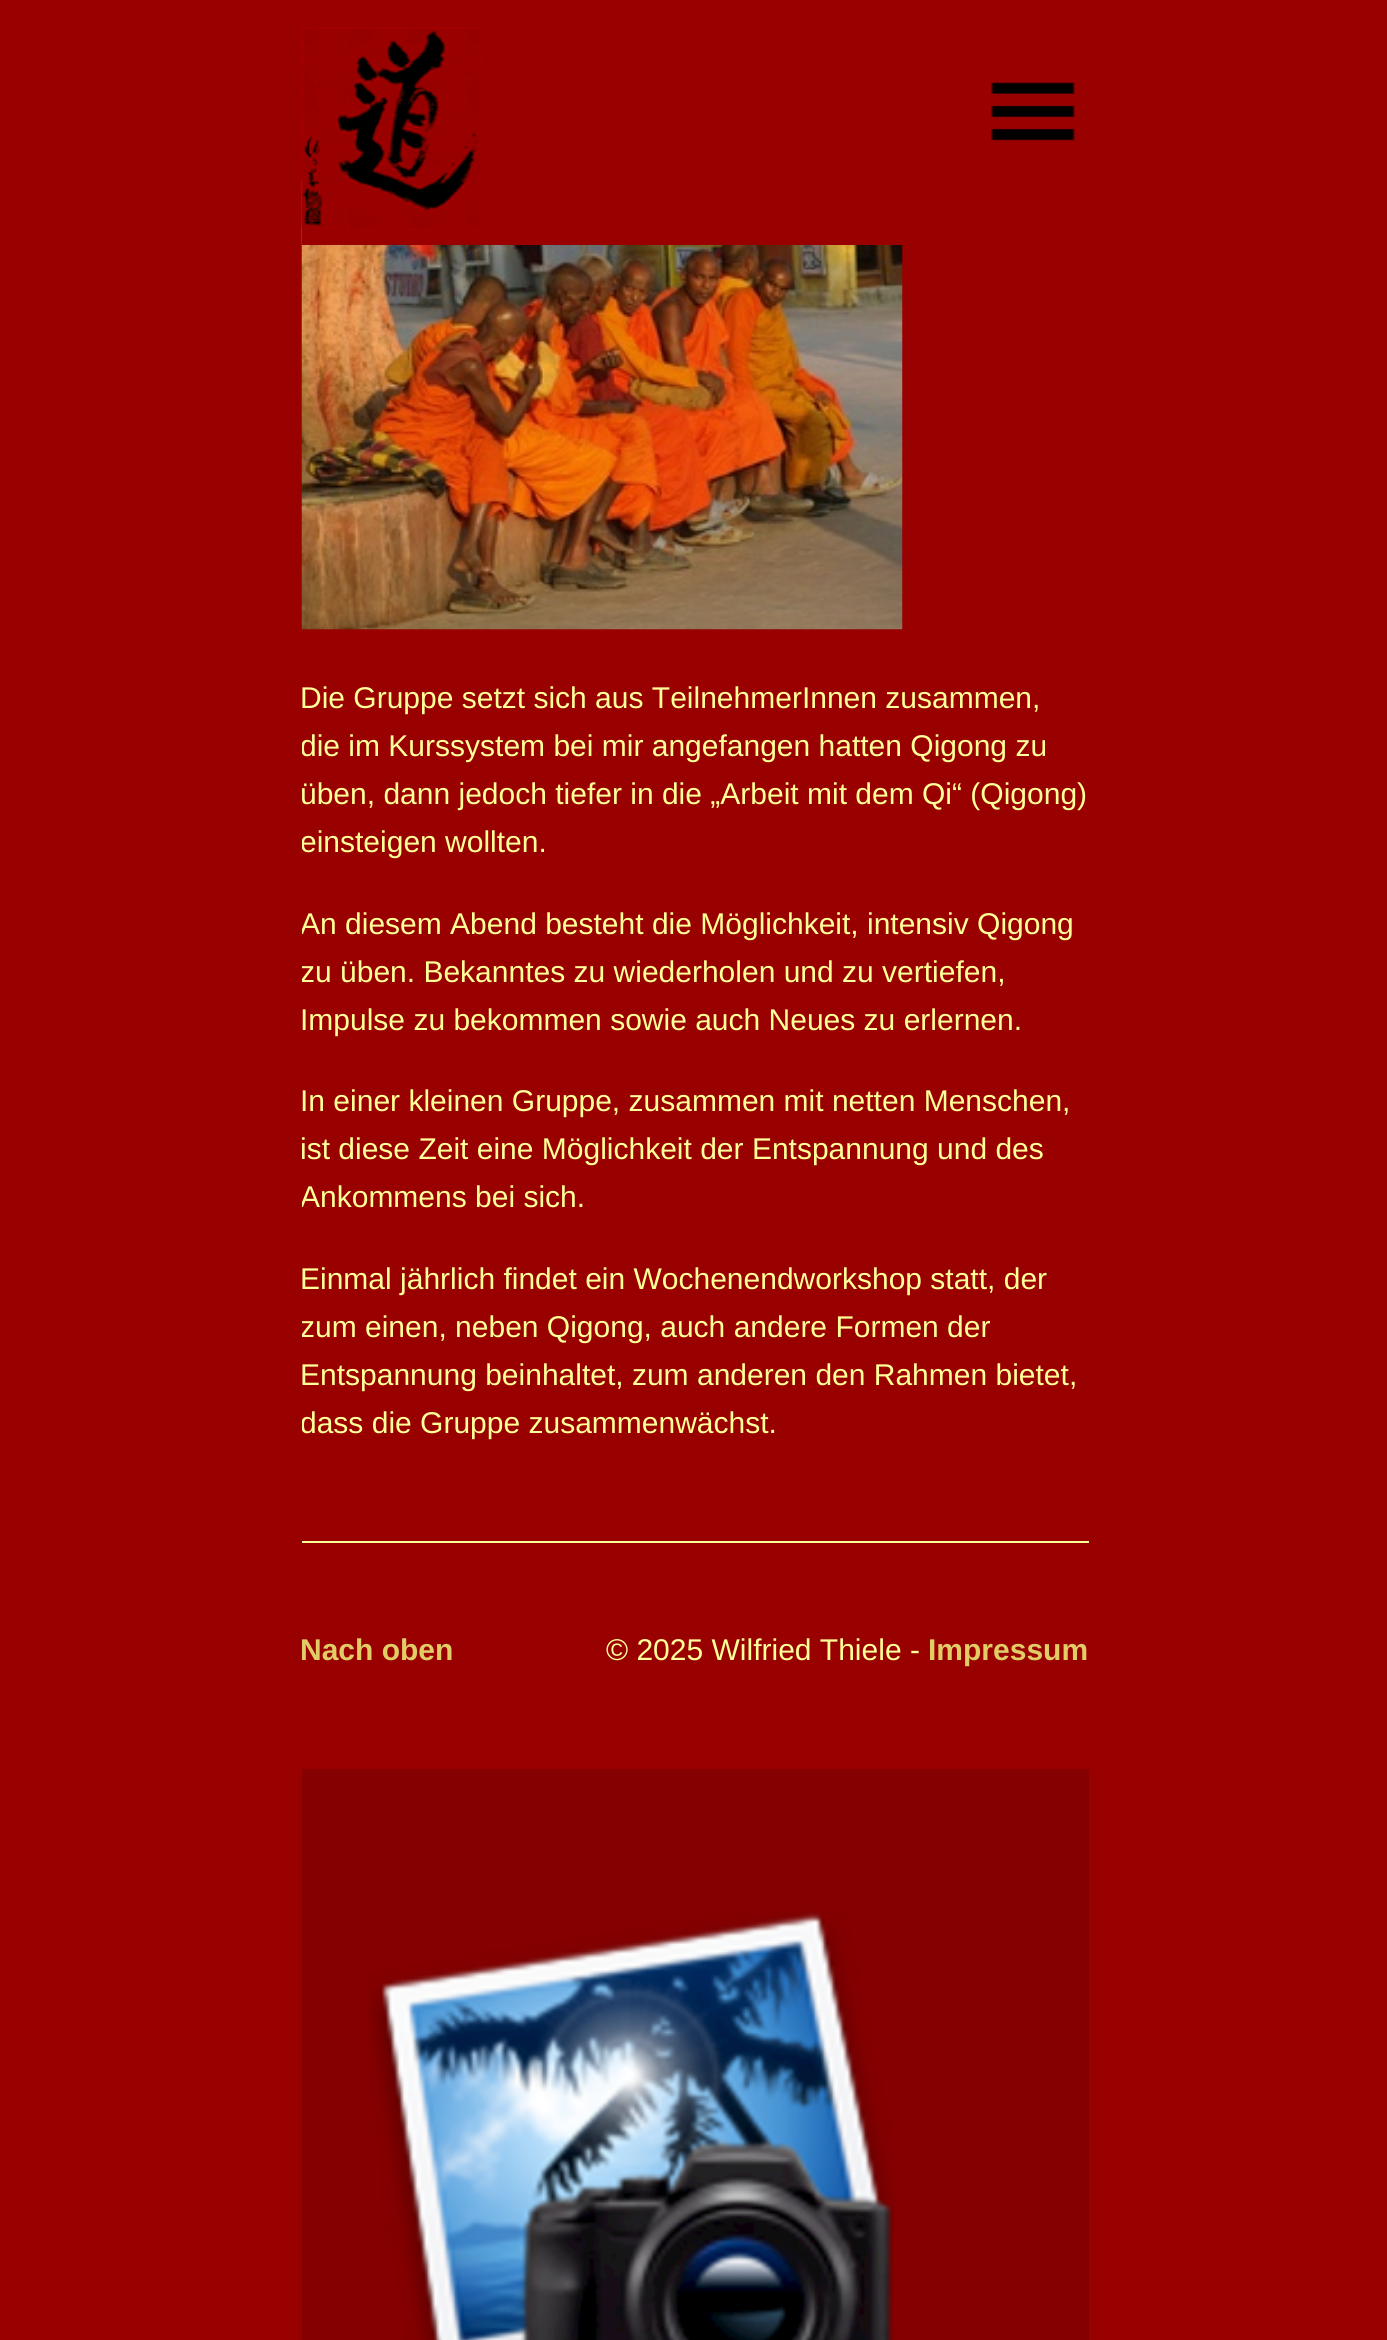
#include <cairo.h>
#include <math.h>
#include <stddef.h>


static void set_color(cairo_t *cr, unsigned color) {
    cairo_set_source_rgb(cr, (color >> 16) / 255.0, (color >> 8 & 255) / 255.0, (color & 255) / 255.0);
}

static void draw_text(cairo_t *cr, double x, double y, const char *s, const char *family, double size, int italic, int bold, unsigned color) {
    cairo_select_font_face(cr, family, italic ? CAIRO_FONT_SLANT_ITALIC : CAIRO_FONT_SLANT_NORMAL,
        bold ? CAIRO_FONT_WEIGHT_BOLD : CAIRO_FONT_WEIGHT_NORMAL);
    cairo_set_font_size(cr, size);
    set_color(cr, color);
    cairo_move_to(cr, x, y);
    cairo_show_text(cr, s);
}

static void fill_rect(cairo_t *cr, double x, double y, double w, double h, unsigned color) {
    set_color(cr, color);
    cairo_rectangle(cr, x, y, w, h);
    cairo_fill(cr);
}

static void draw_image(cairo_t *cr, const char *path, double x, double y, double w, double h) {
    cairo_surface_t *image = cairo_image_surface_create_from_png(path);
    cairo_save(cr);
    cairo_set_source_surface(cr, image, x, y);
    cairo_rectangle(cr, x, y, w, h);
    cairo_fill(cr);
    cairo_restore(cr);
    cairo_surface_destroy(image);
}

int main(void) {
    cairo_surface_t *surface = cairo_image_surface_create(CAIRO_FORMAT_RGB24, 1387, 2340);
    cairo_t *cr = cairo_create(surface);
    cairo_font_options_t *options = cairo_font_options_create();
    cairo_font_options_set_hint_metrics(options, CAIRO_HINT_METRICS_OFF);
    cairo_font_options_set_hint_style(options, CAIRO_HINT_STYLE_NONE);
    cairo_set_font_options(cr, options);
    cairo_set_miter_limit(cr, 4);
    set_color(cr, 0x990000);
    cairo_paint(cr);
    draw_image(cr, "assets/img3.png", 301, 179, 602, 451);
    fill_rect(cr, 302, 179, 601, 66, 0x990000);
    draw_image(cr, "assets/img1.png", 301, 27, 181, 203);
    draw_image(cr, "assets/img2.png", 991, 82, 84, 59);
    draw_text(cr, 300, 708, "Die Gruppe setzt sich aus TeilnehmerInnen zusammen,", "Liberation Sans", 30, 0, 0, 0xFFFF99);
    cairo_save(cr);
    cairo_rectangle(cr, 302, 180, 787, 1301);
    cairo_clip(cr);
    draw_text(cr, 300, 756, "die im Kurssystem bei mir angefangen hatten Qigong zu", "Liberation Sans", 30, 0, 0, 0xFFFF99);
    cairo_restore(cr);
    draw_text(cr, 300, 804, "üben, dann jedoch tiefer in die „Arbeit mit dem Qi“ (Qigong)", "Liberation Sans", 30, 0, 0, 0xFFFF99);
    cairo_save(cr);
    cairo_rectangle(cr, 302, 180, 787, 1301);
    cairo_clip(cr);
    draw_text(cr, 300, 852, "einsteigen wollten.", "Liberation Sans", 30, 0, 0, 0xFFFF99);
    draw_text(cr, 300, 934, "An diesem Abend besteht die Möglichkeit, intensiv Qigong", "Liberation Sans", 30, 0, 0, 0xFFFF99);
    draw_text(cr, 300, 982, "zu üben. Bekanntes zu wiederholen und zu vertiefen,", "Liberation Sans", 30, 0, 0, 0xFFFF99);
    cairo_restore(cr);
    draw_text(cr, 300, 1030, "Impulse zu bekommen sowie auch Neues zu erlernen.", "Liberation Sans", 30, 0, 0, 0xFFFF99);
    draw_text(cr, 300, 1111, "In einer kleinen Gruppe, zusammen mit netten Menschen,", "Liberation Sans", 30, 0, 0, 0xFFFF99);
    draw_text(cr, 300, 1159, "ist diese Zeit eine Möglichkeit der Entspannung und des", "Liberation Sans", 30, 0, 0, 0xFFFF99);
    cairo_save(cr);
    cairo_rectangle(cr, 302, 180, 787, 1301);
    cairo_clip(cr);
    draw_text(cr, 300, 1207, "Ankommens bei sich.", "Liberation Sans", 30, 0, 0, 0xFFFF99);
    cairo_restore(cr);
    draw_text(cr, 300, 1289, "Einmal jährlich findet ein Wochenendworkshop statt, der", "Liberation Sans", 30, 0, 0, 0xFFFF99);
    cairo_save(cr);
    cairo_rectangle(cr, 302, 180, 787, 1301);
    cairo_clip(cr);
    draw_text(cr, 300, 1337, "zum einen, neben Qigong, auch andere Formen der", "Liberation Sans", 30, 0, 0, 0xFFFF99);
    cairo_restore(cr);
    draw_text(cr, 300, 1385, "Entspannung beinhaltet, zum anderen den Rahmen bietet,", "Liberation Sans", 30, 0, 0, 0xFFFF99);
    cairo_save(cr);
    cairo_rectangle(cr, 302, 180, 787, 1301);
    cairo_clip(cr);
    draw_text(cr, 300, 1433, "dass die Gruppe zusammenwächst.", "Liberation Sans", 30, 0, 0, 0xFFFF99);
    cairo_restore(cr);
    fill_rect(cr, 302, 1541, 787, 2, 0xFFFF99);
    draw_text(cr, 300, 1660, "Nach oben", "Liberation Sans", 30, 0, 1, 0xE1CC66);
    draw_text(cr, 606, 1660, "© 2025 Wilfried Thiele -", "Liberation Sans", 30, 0, 0, 0xFFFF99);
    draw_text(cr, 928, 1660, "Impressum", "Liberation Sans", 30, 0, 1, 0xE1CC66);
    fill_rect(cr, 302, 1769, 787, 571, 0x850000);
    draw_image(cr, "assets/img4.png", 368, 1911, 527, 429);
    cairo_surface_write_to_png(surface, "output.png");
    cairo_font_options_destroy(options);
    cairo_destroy(cr);
    cairo_surface_destroy(surface);
    return 0;
}
